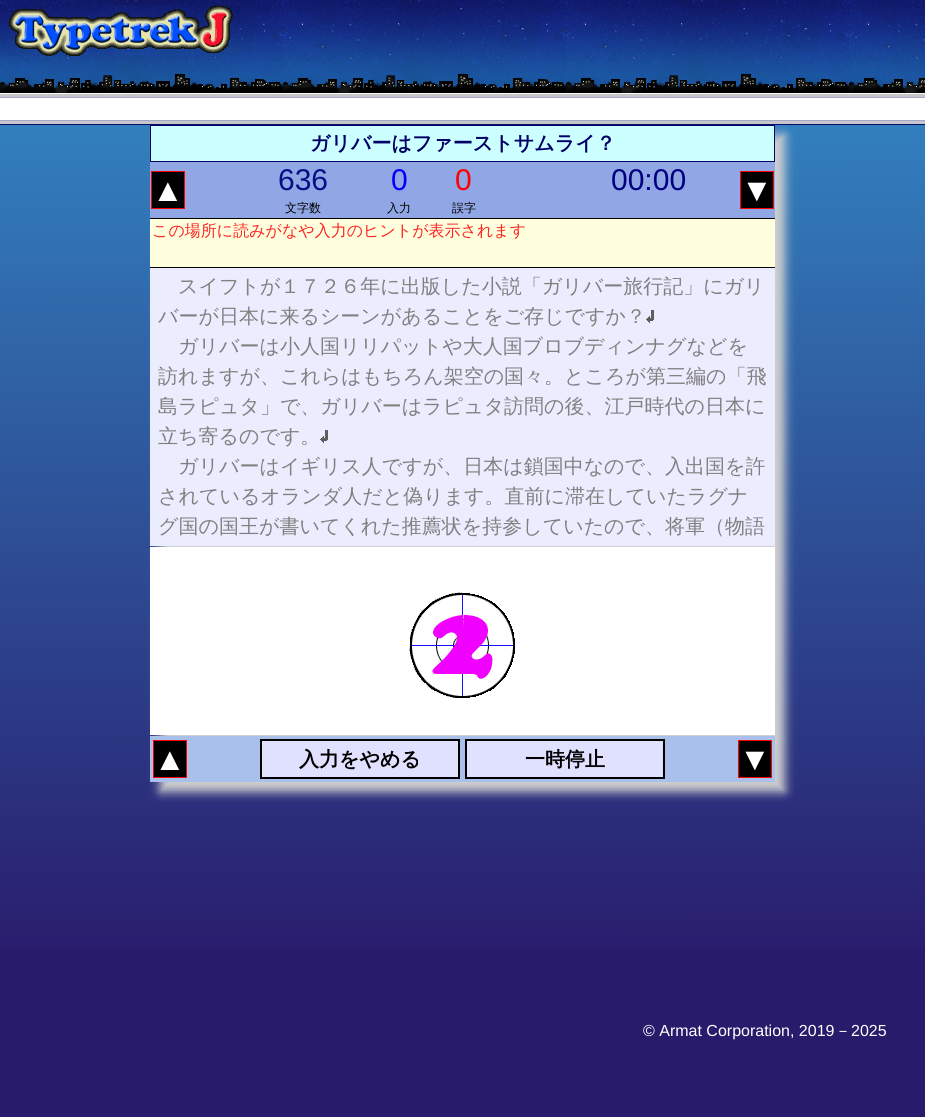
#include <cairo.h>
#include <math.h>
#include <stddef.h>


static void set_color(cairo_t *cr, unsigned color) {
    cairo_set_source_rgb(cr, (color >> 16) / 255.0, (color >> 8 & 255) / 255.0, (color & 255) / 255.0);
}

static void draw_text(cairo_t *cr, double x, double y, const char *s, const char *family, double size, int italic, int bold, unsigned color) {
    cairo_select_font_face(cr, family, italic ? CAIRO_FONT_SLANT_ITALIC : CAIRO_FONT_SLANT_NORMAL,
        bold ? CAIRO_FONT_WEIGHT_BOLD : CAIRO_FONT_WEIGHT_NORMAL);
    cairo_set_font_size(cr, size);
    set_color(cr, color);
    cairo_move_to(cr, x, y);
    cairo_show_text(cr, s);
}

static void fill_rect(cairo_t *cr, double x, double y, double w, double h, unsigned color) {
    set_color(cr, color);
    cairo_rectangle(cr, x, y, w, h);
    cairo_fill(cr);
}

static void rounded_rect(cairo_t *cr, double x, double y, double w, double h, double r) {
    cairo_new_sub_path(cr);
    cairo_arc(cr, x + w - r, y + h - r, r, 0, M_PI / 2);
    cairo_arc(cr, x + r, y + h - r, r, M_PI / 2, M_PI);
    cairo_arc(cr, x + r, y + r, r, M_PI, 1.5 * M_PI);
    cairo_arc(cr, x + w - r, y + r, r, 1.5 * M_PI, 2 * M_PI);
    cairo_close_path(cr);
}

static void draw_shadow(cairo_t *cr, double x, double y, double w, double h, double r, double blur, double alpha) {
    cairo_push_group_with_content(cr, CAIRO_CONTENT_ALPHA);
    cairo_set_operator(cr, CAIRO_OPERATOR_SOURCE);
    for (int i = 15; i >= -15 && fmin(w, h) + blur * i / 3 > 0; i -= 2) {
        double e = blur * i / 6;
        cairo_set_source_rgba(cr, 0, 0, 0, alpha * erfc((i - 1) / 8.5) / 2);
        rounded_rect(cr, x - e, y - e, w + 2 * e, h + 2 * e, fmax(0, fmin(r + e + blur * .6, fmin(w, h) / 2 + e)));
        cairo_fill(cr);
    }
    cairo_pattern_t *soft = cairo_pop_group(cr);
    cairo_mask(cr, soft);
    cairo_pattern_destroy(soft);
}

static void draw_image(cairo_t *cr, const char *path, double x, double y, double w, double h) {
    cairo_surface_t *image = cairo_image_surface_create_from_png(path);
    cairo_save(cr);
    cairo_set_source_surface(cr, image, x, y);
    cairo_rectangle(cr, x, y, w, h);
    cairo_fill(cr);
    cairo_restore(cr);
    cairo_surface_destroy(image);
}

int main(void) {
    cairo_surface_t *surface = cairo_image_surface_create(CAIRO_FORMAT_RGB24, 925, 1117);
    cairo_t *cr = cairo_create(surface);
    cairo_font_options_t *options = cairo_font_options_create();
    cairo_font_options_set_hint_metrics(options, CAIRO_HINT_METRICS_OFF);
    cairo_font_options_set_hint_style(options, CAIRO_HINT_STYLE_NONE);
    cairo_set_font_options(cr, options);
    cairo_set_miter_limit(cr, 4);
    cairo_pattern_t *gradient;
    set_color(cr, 0x291B6C);
    cairo_paint(cr);
    draw_image(cr, "assets/img1.png", 0, 0, 925, 125);
    draw_image(cr, "assets/img2.png", 0, 5, 240, 51);
    gradient = cairo_pattern_create_linear(462, 125, 463, 970);
    cairo_pattern_add_color_stop_rgba(gradient, 0, 0.196, 0.498, 0.741, 1);
    cairo_pattern_add_color_stop_rgba(gradient, 1, 0.161, 0.106, 0.424, 1);
    cairo_set_source(cr, gradient);
    cairo_pattern_destroy(gradient);
    cairo_rectangle(cr, 0, 125, 925, 824);
    cairo_fill(cr);
    set_color(cr, 0xD0D0D0);
    draw_shadow(cr, 160, 135, 625, 657, 0, 5, 1);
    set_color(cr, 0xCCFFFF);
    cairo_rectangle(cr, 150.5, 125.5, 624, 36);
    cairo_fill_preserve(cr);
    set_color(cr, 0x000066);
    cairo_set_line_width(cr, 1);
    cairo_stroke(cr);
    draw_text(cr, 310, 150, "ガリバーはファーストサムライ？", "WenQuanYi Zen Hei", 20, 0, 1, 0x000066);
    fill_rect(cr, 150, 162, 625, 56, 0x91A6E4);
    set_color(cr, 0x000000);
    cairo_rectangle(cr, 151.5, 171.5, 33, 37);
    cairo_fill_preserve(cr);
    set_color(cr, 0xFF0000);
    cairo_stroke(cr);
    draw_text(cr, 152, 201, "▲", "Liberation Sans", 32, 0, 0, 0xFFFFFF);
    draw_text(cr, 278, 190, "636", "Liberation Sans", 30, 0, 0, 0x001188);
    draw_text(cr, 391, 190, "0", "Liberation Sans", 30, 0, 0, 0x0000FF);
    draw_text(cr, 455, 190, "0", "Liberation Sans", 30, 0, 0, 0xFF0000);
    draw_text(cr, 611, 190, "00:00", "Liberation Sans", 30, 0, 0, 0x000080);
    set_color(cr, 0x000000);
    cairo_rectangle(cr, 740.5, 171.5, 33, 37);
    cairo_fill_preserve(cr);
    set_color(cr, 0xFF0000);
    cairo_stroke(cr);
    draw_text(cr, 741, 201, "▼", "Liberation Sans", 32, 0, 0, 0xFFFFFF);
    draw_text(cr, 285, 212, "文字数", "WenQuanYi Zen Hei Medium", 12, 0, 0, 0x000000);
    draw_text(cr, 387, 212, "入力", "WenQuanYi Zen Hei Medium", 12, 0, 0, 0x000000);
    draw_text(cr, 452, 212, "誤字", "WenQuanYi Zen Hei Medium", 12, 0, 0, 0x000000);
    fill_rect(cr, 150, 218, 625, 1, 0x000000);
    fill_rect(cr, 150, 267, 625, 1, 0x000000);
    fill_rect(cr, 150, 219, 625, 48, 0xFFFFDD);
    draw_text(cr, 152, 236, "この場所に読みがなや入力のヒントが表示されます", "WenQuanYi Zen Hei Medium", 16, 0, 0, 0xFF2222);
    fill_rect(cr, 150, 268, 625, 278, 0xECECFF);
    draw_text(cr, 178, 293, "スイフトが１７２６年に出版した小説「ガリバー旅行記」にガリ", "WenQuanYi Zen Hei Medium", 20, 0, 0, 0x808080);
    draw_text(cr, 158, 323, "バーが日本に来るシーンがあることをご存じですか？", "WenQuanYi Zen Hei Medium", 20, 0, 0, 0x808080);
    draw_image(cr, "assets/img3.png", 646, 310, 8, 13);
    draw_text(cr, 178, 353, "ガリバーは小人国リリパットや大人国ブロブディンナグなどを", "WenQuanYi Zen Hei Medium", 20, 0, 0, 0x808080);
    draw_text(cr, 158, 383, "訪れますが、これらはもちろん架空の国々。ところが第三編の「飛", "WenQuanYi Zen Hei Medium", 20, 0, 0, 0x808080);
    draw_text(cr, 158, 413, "島ラピュタ」で、ガリバーはラピュタ訪問の後、江戸時代の日本に", "WenQuanYi Zen Hei Medium", 20, 0, 0, 0x808080);
    draw_text(cr, 158, 443, "立ち寄るのです。", "WenQuanYi Zen Hei Medium", 20, 0, 0, 0x808080);
    draw_image(cr, "assets/img3.png", 320, 430, 8, 13);
    draw_text(cr, 178, 473, "ガリバーはイギリス人ですが、日本は鎖国中なので、入出国を許", "WenQuanYi Zen Hei Medium", 20, 0, 0, 0x808080);
    draw_text(cr, 158, 503, "されているオランダ人だと偽ります。直前に滞在していたラグナ", "WenQuanYi Zen Hei Medium", 20, 0, 0, 0x808080);
    draw_text(cr, 158, 533, "グ国の国王が書いてくれた推薦状を持参していたので、将軍（物語", "WenQuanYi Zen Hei Medium", 20, 0, 0, 0x808080);
    fill_rect(cr, 150, 547, 625, 188, 0xFFFFFF);
    draw_image(cr, "assets/img5.png", 410, 593, 105, 105);
    draw_image(cr, "assets/img7.png", 463, 595, 50, 101);
    draw_image(cr, "assets/img4.png", 409, 592, 56, 106);
    draw_image(cr, "assets/img6.png", 411, 594, 52, 102);
    fill_rect(cr, 150, 736, 625, 46, 0xA8C0EA);
    set_color(cr, 0x000000);
    cairo_rectangle(cr, 153.5, 740.5, 33, 37);
    cairo_fill_preserve(cr);
    set_color(cr, 0xFF0000);
    cairo_stroke(cr);
    draw_text(cr, 154, 770, "▲", "Liberation Sans", 32, 0, 0, 0xFFFFFF);
    set_color(cr, 0xE0E0FF);
    cairo_rectangle(cr, 261, 740, 198, 38);
    cairo_fill_preserve(cr);
    set_color(cr, 0x000000);
    cairo_set_line_width(cr, 2);
    cairo_stroke(cr);
    draw_text(cr, 299, 766, "入力をやめる", "WenQuanYi Zen Hei", 20, 0, 1, 0x000000);
    set_color(cr, 0xE0E0FF);
    cairo_rectangle(cr, 466, 740, 198, 38);
    cairo_fill_preserve(cr);
    set_color(cr, 0x000000);
    cairo_stroke(cr);
    draw_text(cr, 525, 766, "一時停止", "WenQuanYi Zen Hei", 20, 0, 1, 0x000000);
    cairo_rectangle(cr, 738.5, 740.5, 33, 37);
    cairo_fill_preserve(cr);
    set_color(cr, 0xFF0000);
    cairo_set_line_width(cr, 1);
    cairo_stroke(cr);
    draw_text(cr, 739, 770, "▼", "Liberation Sans", 32, 0, 0, 0xFFFFFF);
    draw_text(cr, 643, 1036, "© Armat Corporation, 2019", "Liberation Sans", 16, 0, 0, 0xFFFFFF);
    draw_text(cr, 835, 1036, "－", "WenQuanYi Zen Hei Medium", 16, 0, 0, 0xFFFFFF);
    draw_text(cr, 851, 1036, "2025", "Liberation Sans", 16, 0, 0, 0xFFFFFF);
    cairo_surface_write_to_png(surface, "output.png");
    cairo_font_options_destroy(options);
    cairo_destroy(cr);
    cairo_surface_destroy(surface);
    return 0;
}
